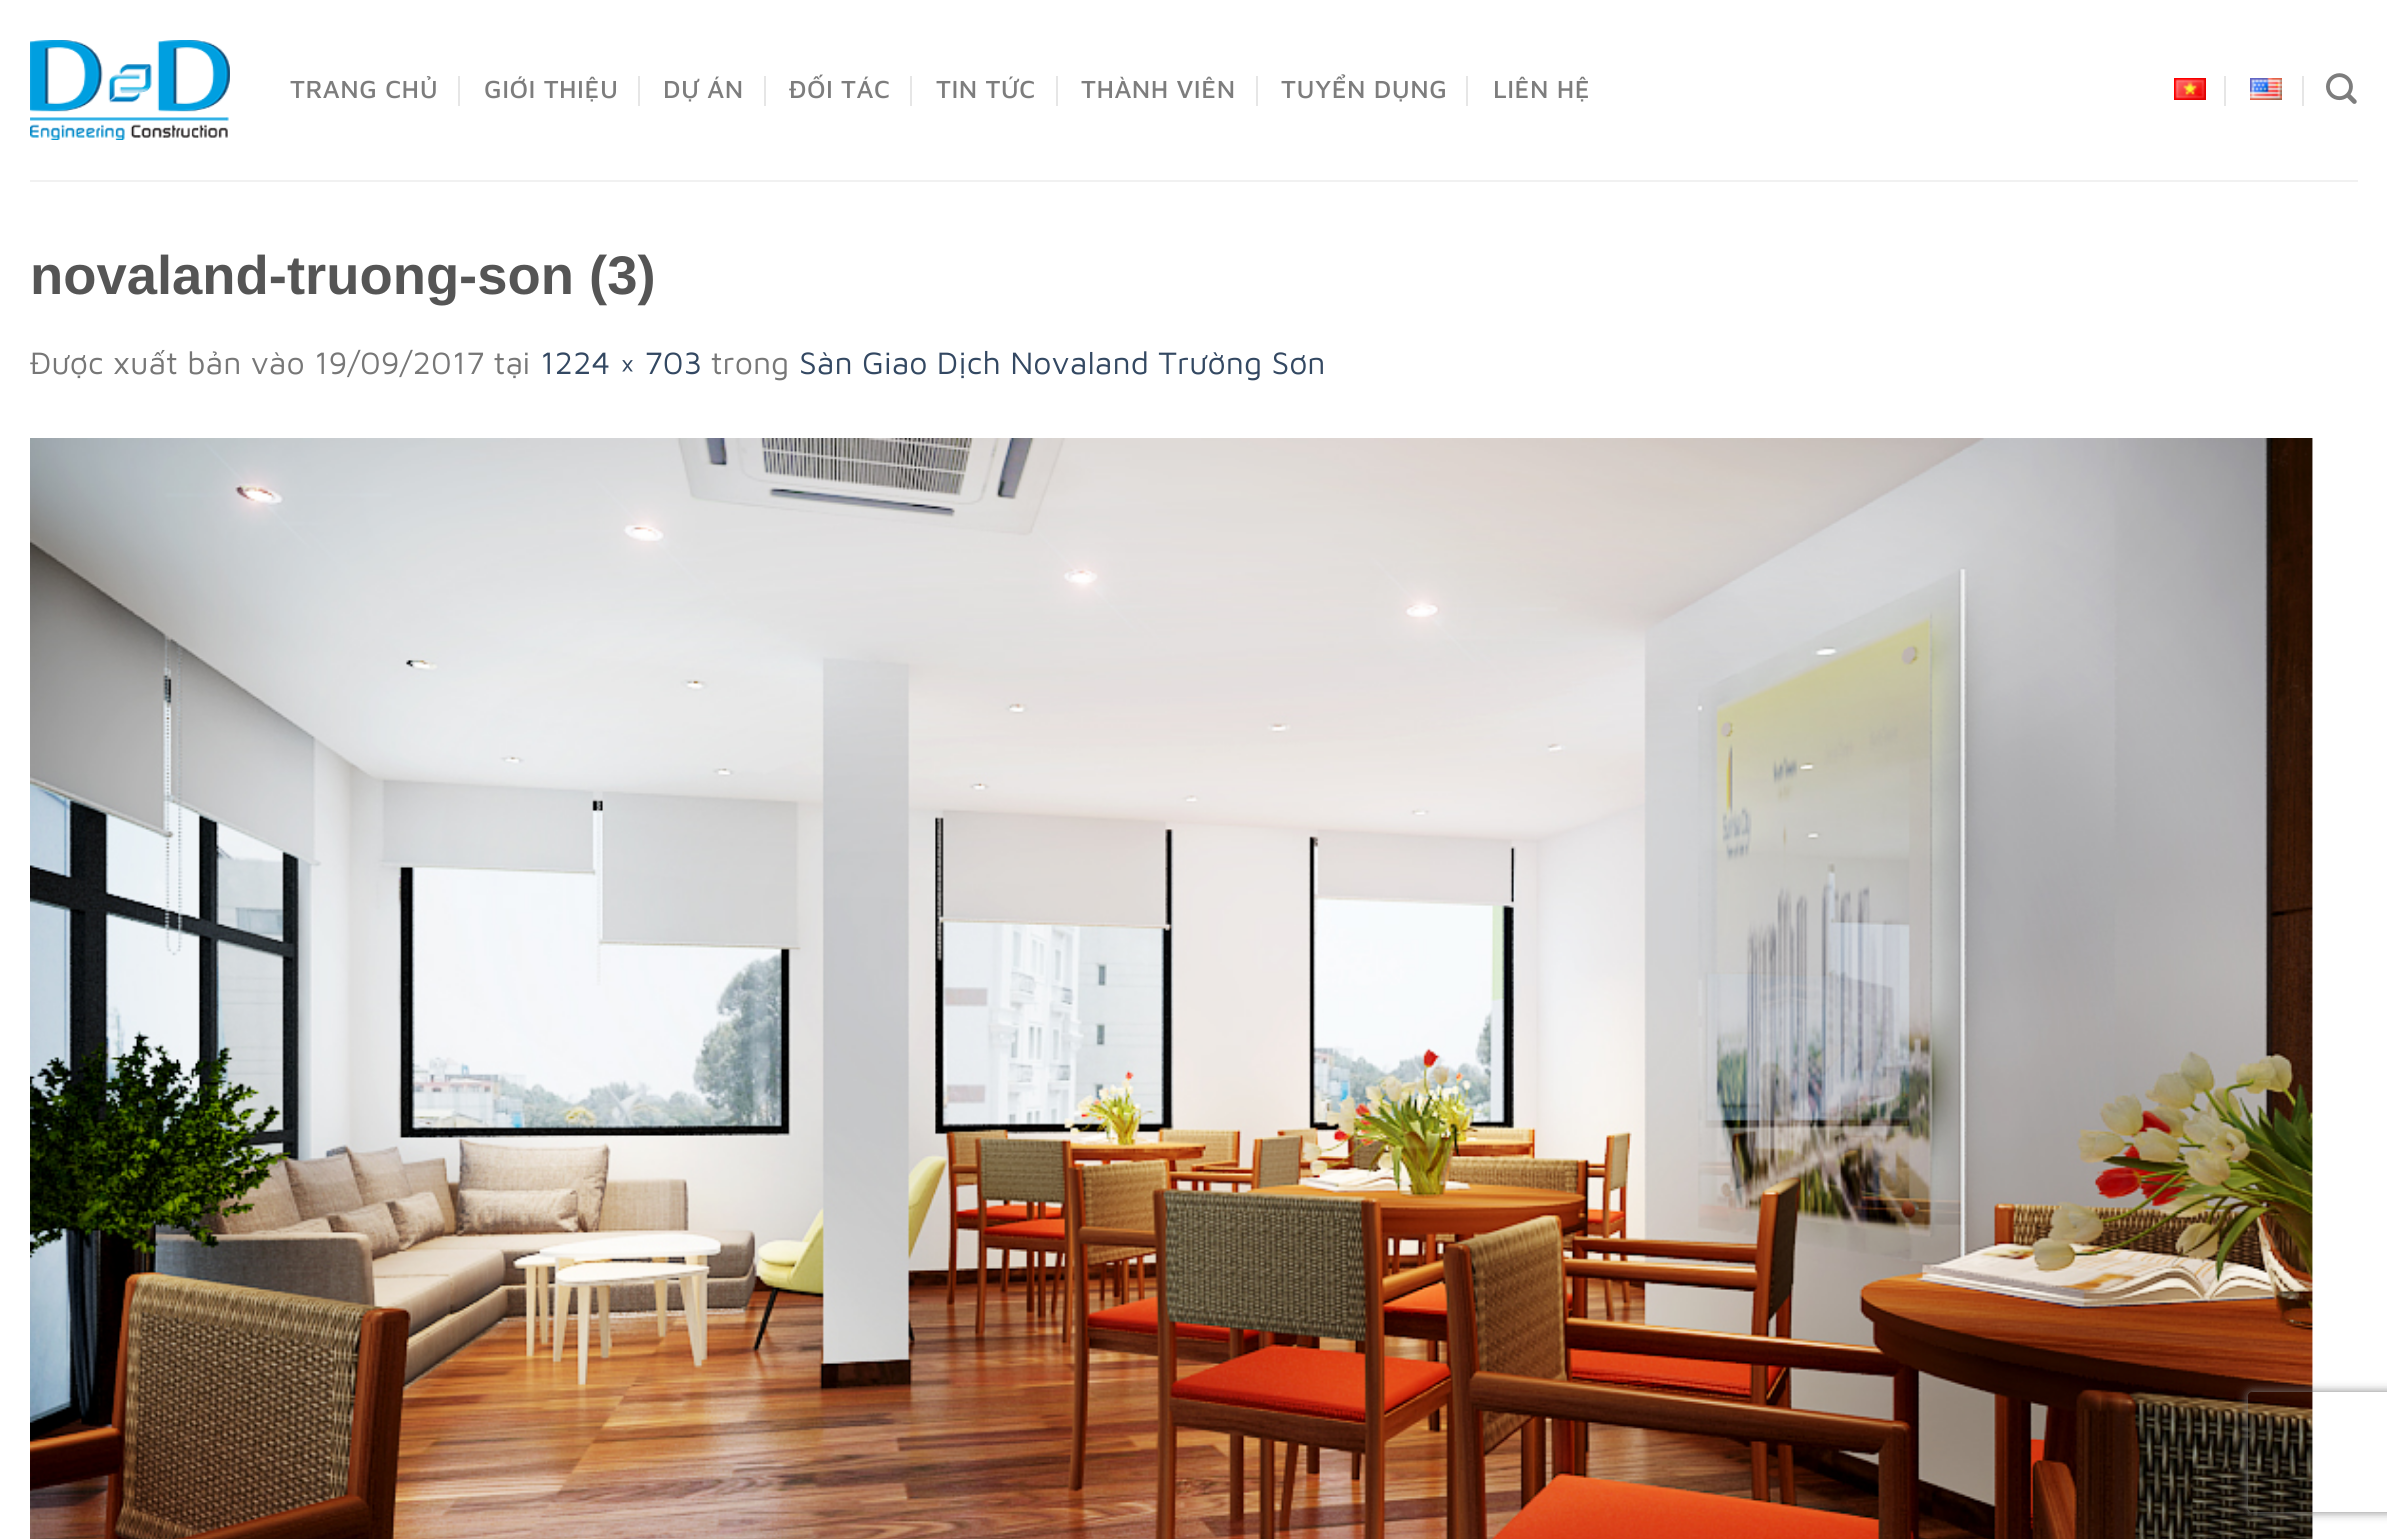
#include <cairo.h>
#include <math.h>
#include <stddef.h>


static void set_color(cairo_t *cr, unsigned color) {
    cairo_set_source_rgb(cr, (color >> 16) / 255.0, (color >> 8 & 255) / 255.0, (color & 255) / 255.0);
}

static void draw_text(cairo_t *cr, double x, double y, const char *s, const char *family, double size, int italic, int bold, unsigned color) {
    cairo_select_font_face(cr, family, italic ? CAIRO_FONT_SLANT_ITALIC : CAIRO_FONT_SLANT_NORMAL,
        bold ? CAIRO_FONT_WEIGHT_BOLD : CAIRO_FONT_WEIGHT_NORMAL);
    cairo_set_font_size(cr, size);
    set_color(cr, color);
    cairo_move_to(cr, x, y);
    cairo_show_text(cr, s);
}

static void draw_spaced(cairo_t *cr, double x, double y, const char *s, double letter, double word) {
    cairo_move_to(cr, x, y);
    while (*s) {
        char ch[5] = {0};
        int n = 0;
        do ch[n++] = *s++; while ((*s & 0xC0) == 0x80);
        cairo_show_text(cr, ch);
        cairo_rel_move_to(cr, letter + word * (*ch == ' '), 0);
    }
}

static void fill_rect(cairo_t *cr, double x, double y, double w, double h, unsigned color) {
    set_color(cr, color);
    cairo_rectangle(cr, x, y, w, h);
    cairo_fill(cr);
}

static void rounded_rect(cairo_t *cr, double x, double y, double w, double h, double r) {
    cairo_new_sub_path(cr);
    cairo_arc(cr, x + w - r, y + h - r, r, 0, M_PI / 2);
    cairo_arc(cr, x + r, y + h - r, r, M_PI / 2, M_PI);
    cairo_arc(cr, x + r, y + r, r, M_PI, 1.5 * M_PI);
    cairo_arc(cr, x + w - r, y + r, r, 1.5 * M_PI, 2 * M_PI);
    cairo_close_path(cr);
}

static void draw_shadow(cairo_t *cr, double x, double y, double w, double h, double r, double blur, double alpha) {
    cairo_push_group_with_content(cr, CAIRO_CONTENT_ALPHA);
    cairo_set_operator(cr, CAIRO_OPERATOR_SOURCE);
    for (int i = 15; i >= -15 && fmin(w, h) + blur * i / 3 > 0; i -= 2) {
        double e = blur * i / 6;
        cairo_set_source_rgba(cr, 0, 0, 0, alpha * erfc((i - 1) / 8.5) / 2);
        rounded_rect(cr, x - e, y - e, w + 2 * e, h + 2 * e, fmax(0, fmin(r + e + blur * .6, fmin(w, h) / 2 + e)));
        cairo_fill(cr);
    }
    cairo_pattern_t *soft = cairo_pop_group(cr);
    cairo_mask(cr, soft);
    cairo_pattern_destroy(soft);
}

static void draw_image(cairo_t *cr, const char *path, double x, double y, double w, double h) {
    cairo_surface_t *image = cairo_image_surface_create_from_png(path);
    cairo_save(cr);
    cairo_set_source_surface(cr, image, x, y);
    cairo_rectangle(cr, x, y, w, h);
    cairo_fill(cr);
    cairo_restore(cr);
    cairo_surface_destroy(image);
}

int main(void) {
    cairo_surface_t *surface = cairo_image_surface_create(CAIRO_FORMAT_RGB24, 2387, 1539);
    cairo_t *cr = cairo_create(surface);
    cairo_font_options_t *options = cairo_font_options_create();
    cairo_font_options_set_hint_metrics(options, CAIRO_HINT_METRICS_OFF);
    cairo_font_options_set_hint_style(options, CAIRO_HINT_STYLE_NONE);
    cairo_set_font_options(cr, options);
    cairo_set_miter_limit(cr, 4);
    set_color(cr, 0xFFFFFF);
    cairo_paint(cr);
    draw_image(cr, "assets/img1.png", 30, 40, 200, 100);
    cairo_select_font_face(cr, "Maven Pro Medium", CAIRO_FONT_SLANT_NORMAL, CAIRO_FONT_WEIGHT_NORMAL);
    cairo_set_font_size(cr, 25.5);
    set_color(cr, 0x7D7D7D);
    draw_spaced(cr, 290, 98, "TRANG CHỦ", 0.5, 0);
    fill_rect(cr, 458, 76, 2, 30, 0xE6E6E6);
    set_color(cr, 0x7D7D7D);
    draw_spaced(cr, 484, 98, "GIỚI THIỆU", 0.5, 0);
    fill_rect(cr, 638, 76, 2, 30, 0xE6E6E6);
    set_color(cr, 0x7D7D7D);
    draw_spaced(cr, 663, 98, "DỰ ÁN", 0.5, 0);
    fill_rect(cr, 764, 76, 2, 30, 0xE6E6E6);
    set_color(cr, 0x7D7D7D);
    draw_spaced(cr, 789, 98, "ĐỐI TÁC", 0.5, 0);
    fill_rect(cr, 910, 76, 2, 30, 0xE6E6E6);
    set_color(cr, 0x7D7D7D);
    draw_spaced(cr, 936, 98, "TIN TỨC", 0.5, 0);
    fill_rect(cr, 1056, 76, 2, 30, 0xE6E6E6);
    set_color(cr, 0x7D7D7D);
    draw_spaced(cr, 1081, 98, "THÀNH VIÊN", 0.5, 0);
    fill_rect(cr, 1256, 76, 2, 30, 0xE6E6E6);
    set_color(cr, 0x7D7D7D);
    draw_spaced(cr, 1281, 98, "TUYỂN DỤNG", 0.5, 0);
    fill_rect(cr, 1466, 76, 2, 30, 0xE6E6E6);
    set_color(cr, 0x7D7D7D);
    draw_spaced(cr, 1493, 98, "LIÊN HỆ", 0.5, 0);
    draw_image(cr, "assets/img2.png", 2174, 78, 32, 22);
    fill_rect(cr, 2224, 76, 2, 30, 0xE6E6E6);
    draw_image(cr, "assets/img3.png", 2250, 78, 32, 22);
    fill_rect(cr, 2302, 76, 2, 30, 0xE6E6E6);
    draw_image(cr, "assets/img4.png", 2326, 73, 31, 31);
    fill_rect(cr, 30, 180, 2328, 2, 0xF1F1F1);
    draw_text(cr, 30, 294, "novaland-truong-son (3)", "Liberation Sans", 54.4, 0, 1, 0x555555);
    draw_text(cr, 30, 374, "Được xuất bản vào 19/09/2017 tại", "Maven Pro", 32, 0, 0, 0x777777);
    draw_text(cr, 540, 374, "1224 × 703", "Maven Pro", 32, 0, 0, 0x334862);
    draw_text(cr, 711, 374, "trong", "Maven Pro", 32, 0, 0, 0x777777);
    draw_text(cr, 799, 374, "Sàn Giao Dịch Novaland Trường Sơn", "Maven Pro", 32, 0, 0, 0x334862);
    draw_image(cr, "assets/img5.png", 30, 438, 2283, 1101);
    cairo_save(cr);
    cairo_set_fill_rule(cr, CAIRO_FILL_RULE_EVEN_ODD);
    cairo_new_path(cr);
    cairo_move_to(cr, 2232, 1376);
    cairo_line_to(cr, 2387, 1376);
    cairo_line_to(cr, 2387, 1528);
    cairo_line_to(cr, 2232, 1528);
    cairo_close_path(cr);
    cairo_move_to(cr, 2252, 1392);
    cairo_line_to(cr, 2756, 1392);
    cairo_curve_to(cr, 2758, 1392, 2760, 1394, 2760, 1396);
    cairo_line_to(cr, 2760, 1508);
    cairo_curve_to(cr, 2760, 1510, 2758, 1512, 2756, 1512);
    cairo_line_to(cr, 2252, 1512);
    cairo_curve_to(cr, 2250, 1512, 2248, 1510, 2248, 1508);
    cairo_line_to(cr, 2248, 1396);
    cairo_curve_to(cr, 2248, 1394, 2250, 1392, 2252, 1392);
    cairo_close_path(cr);
    cairo_clip(cr);
    set_color(cr, 0x808080);
    draw_shadow(cr, 2248, 1392, 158, 120, 4, 5, 1);
    cairo_restore(cr);
    cairo_surface_write_to_png(surface, "output.png");
    cairo_font_options_destroy(options);
    cairo_destroy(cr);
    cairo_surface_destroy(surface);
    return 0;
}
